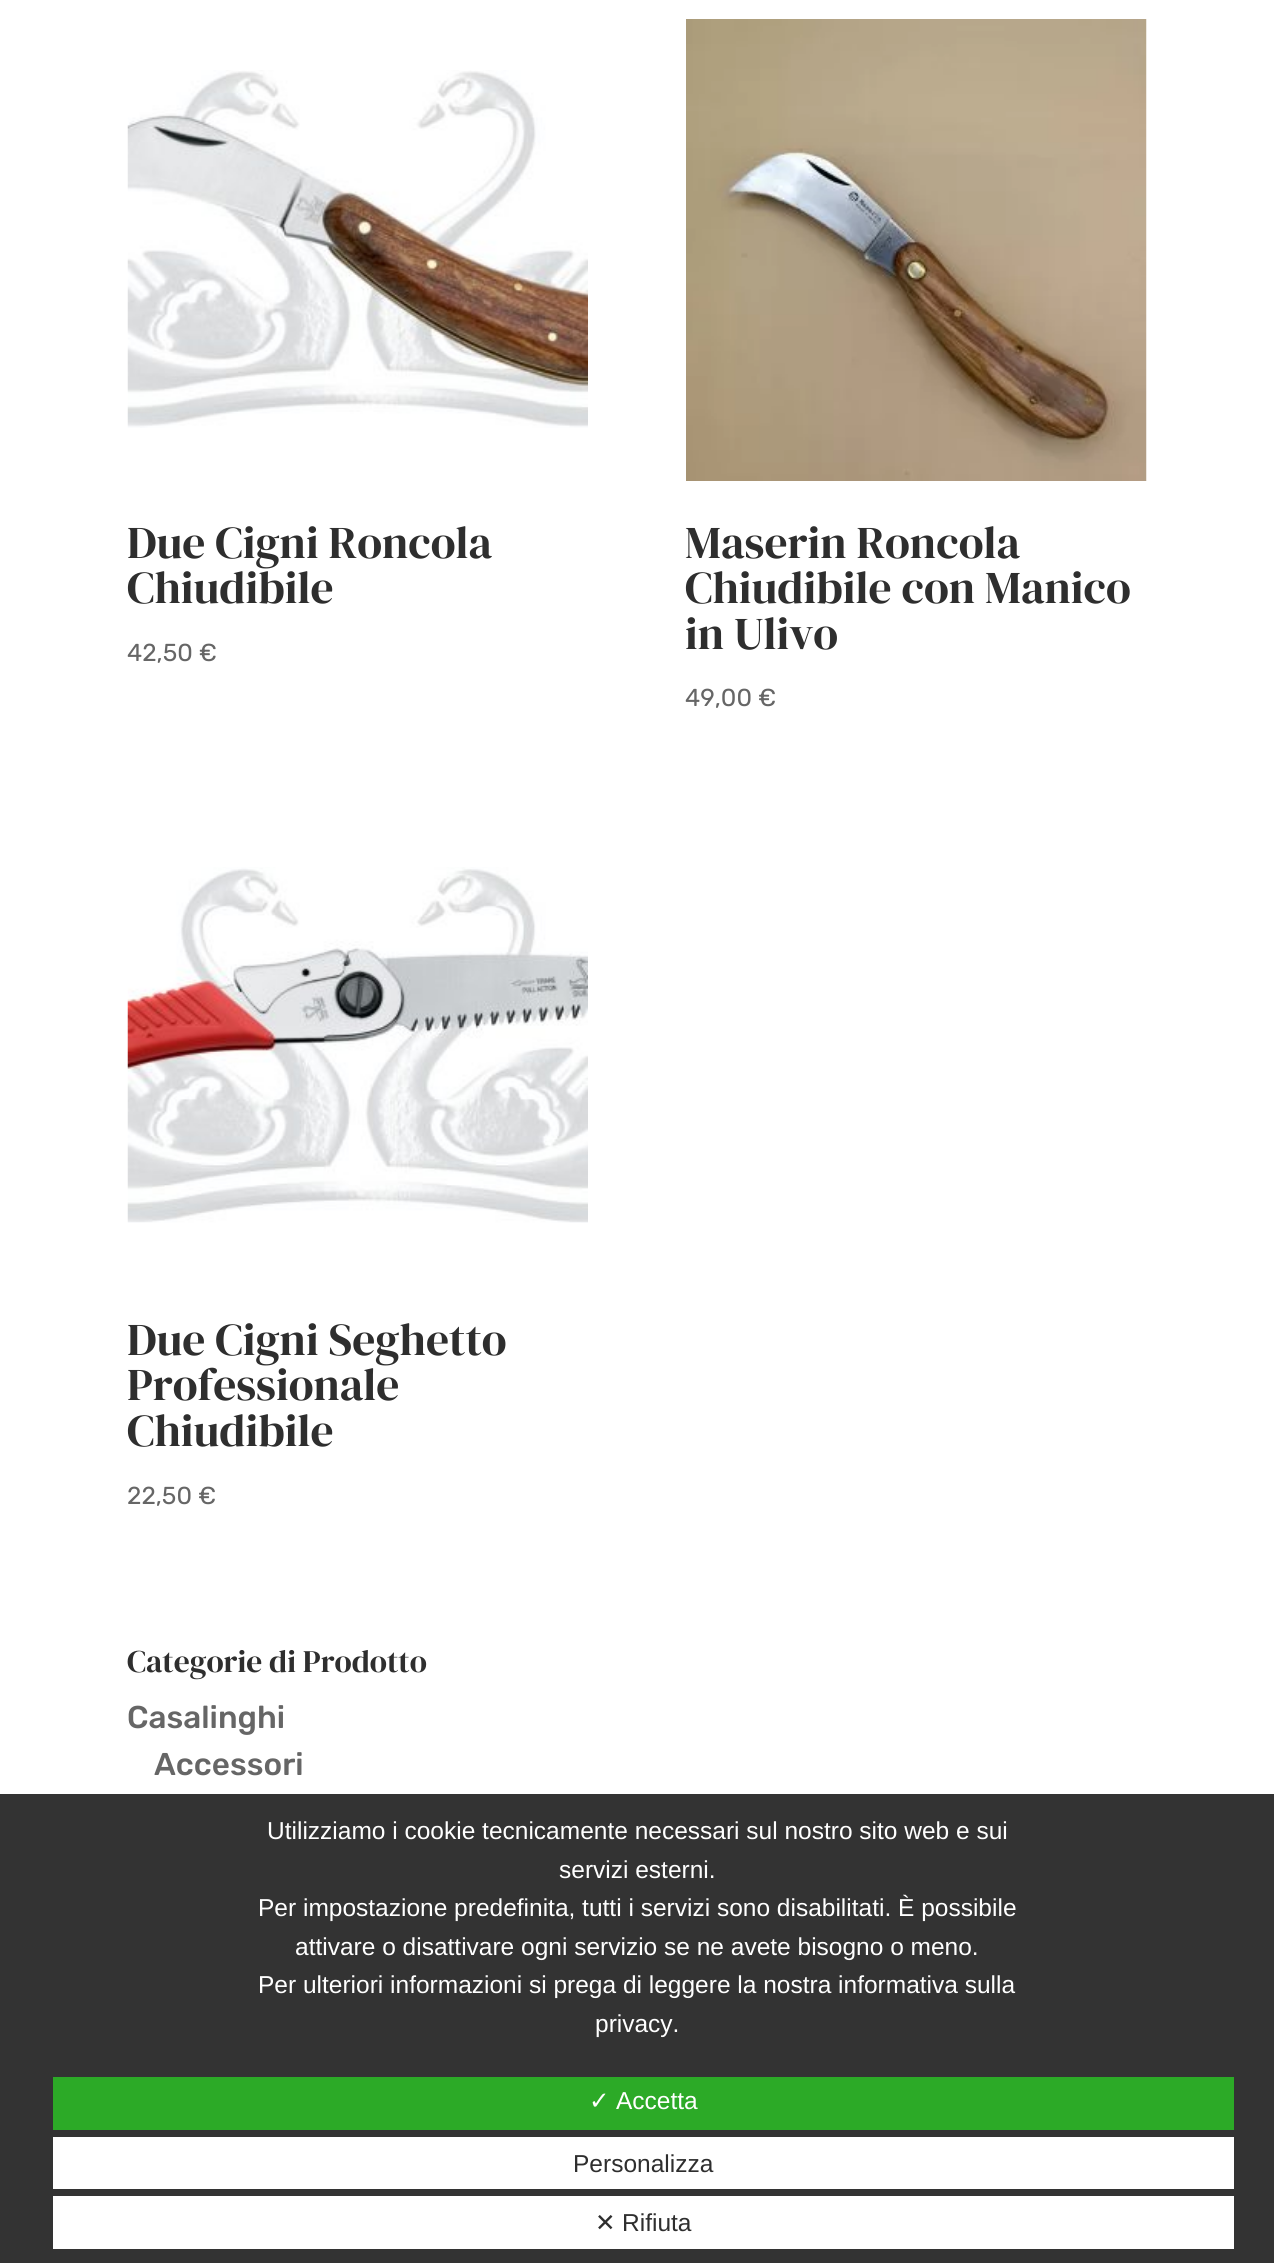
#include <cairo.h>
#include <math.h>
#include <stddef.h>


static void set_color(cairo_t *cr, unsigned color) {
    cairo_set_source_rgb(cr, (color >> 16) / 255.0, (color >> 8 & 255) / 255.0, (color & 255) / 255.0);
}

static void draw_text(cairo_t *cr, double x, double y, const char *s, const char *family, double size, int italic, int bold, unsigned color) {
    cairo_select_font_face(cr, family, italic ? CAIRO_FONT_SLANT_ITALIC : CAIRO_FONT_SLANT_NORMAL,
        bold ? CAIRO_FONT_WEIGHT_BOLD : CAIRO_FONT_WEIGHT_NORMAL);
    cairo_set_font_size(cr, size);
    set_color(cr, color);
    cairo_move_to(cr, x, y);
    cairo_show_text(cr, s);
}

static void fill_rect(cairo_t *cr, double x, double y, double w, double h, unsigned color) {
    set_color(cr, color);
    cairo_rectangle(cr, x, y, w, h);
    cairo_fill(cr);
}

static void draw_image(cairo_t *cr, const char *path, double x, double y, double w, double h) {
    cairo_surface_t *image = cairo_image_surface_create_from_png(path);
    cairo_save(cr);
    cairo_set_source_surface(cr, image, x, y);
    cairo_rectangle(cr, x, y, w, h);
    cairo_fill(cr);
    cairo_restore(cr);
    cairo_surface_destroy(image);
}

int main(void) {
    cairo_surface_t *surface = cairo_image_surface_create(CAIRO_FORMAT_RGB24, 1274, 2263);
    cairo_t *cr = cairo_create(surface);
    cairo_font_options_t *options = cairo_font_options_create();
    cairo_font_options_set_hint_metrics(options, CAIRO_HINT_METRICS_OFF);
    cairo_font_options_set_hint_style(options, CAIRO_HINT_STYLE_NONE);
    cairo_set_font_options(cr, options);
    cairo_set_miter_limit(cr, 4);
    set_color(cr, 0xFFFFFF);
    cairo_paint(cr);
    draw_image(cr, "assets/img1.png", 127, 70, 461, 358);
    draw_text(cr, 127, 558, "Due Cigni Roncola", "DM Serif Display", 45.5, 0, 0, 0x2E2E2E);
    draw_text(cr, 127, 603, "Chiudibile", "DM Serif Display", 45.5, 0, 0, 0x2E2E2E);
    draw_text(cr, 127, 661, "42,50 €", "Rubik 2 Light", 24.5, 0, 0, 0x666666);
    draw_image(cr, "assets/img2.png", 686, 19, 461, 462);
    draw_text(cr, 685, 558, "Maserin Roncola", "DM Serif Display", 45.5, 0, 0, 0x2E2E2E);
    draw_text(cr, 685, 603, "Chiudibile con Manico", "DM Serif Display", 45.5, 0, 0, 0x2E2E2E);
    draw_text(cr, 685, 649, "in Ulivo", "DM Serif Display", 45.5, 0, 0, 0x2E2E2E);
    draw_text(cr, 685, 706, "49,00 €", "Rubik 2 Light", 24.5, 0, 0, 0x666666);
    draw_image(cr, "assets/img3.png", 127, 867, 461, 356);
    draw_text(cr, 127, 1355, "Due Cigni Seghetto", "DM Serif Display", 45.5, 0, 0, 0x2E2E2E);
    draw_text(cr, 127, 1400, "Professionale", "DM Serif Display", 45.5, 0, 0, 0x2E2E2E);
    draw_text(cr, 127, 1446, "Chiudibile", "DM Serif Display", 45.5, 0, 0, 0x2E2E2E);
    draw_text(cr, 127, 1504, "22,50 €", "Rubik 2 Light", 24.5, 0, 0, 0x666666);
    draw_text(cr, 127, 1672, "Categorie di Prodotto", "DM Serif Display", 31.5, 0, 0, 0x2E2E2E);
    draw_text(cr, 127, 1728, "Casalinghi", "Rubik Light", 31.5, 0, 0, 0x666666);
    draw_text(cr, 154, 1775, "Accessori", "Rubik Light", 31.5, 0, 0, 0x666666);
    fill_rect(cr, 0, 1794, 1274, 469, 0x333333);
    draw_text(cr, 267, 1839, "Utilizziamo i cookie tecnicamente necessari sul nostro sito web e sui", "Liberation Sans", 24.5, 0, 0, 0xFFFFFF);
    draw_text(cr, 559, 1878, "servizi esterni.", "Liberation Sans", 24.5, 0, 0, 0xFFFFFF);
    draw_text(cr, 258, 1916, "Per impostazione predefinita, tutti i servizi sono disabilitati. È possibile", "Liberation Sans", 24.5, 0, 0, 0xFFFFFF);
    draw_text(cr, 295, 1955, "attivare o disattivare ogni servizio se ne avete bisogno o meno.", "Liberation Sans", 24.5, 0, 0, 0xFFFFFF);
    draw_text(cr, 258, 1993, "Per ulteriori informazioni si prega di leggere la nostra informativa sulla", "Liberation Sans", 24.5, 0, 0, 0xFFFFFF);
    draw_text(cr, 595, 2032, "privacy.", "Liberation Sans", 24.5, 0, 0, 0xFFFFFF);
    fill_rect(cr, 53, 2077, 1181, 53, 0x2CAA27);
    draw_text(cr, 589, 2109, "✓", "DejaVu Sans", 24.5, 0, 0, 0xFFFFFF);
    draw_text(cr, 616, 2109, "Accetta", "Liberation Sans", 24.5, 0, 0, 0xFFFFFF);
    fill_rect(cr, 53, 2137, 1181, 52, 0xFFFFFF);
    draw_text(cr, 573, 2172, "Personalizza", "Liberation Sans", 24.5, 0, 0, 0x2E2E2E);
    fill_rect(cr, 53, 2196, 1181, 53, 0xFFFFFF);
    draw_text(cr, 595, 2231, "✕", "DejaVu Sans", 24.5, 0, 0, 0x2E2E2E);
    draw_text(cr, 622, 2231, "Rifiuta", "Liberation Sans", 24.5, 0, 0, 0x2E2E2E);
    cairo_surface_write_to_png(surface, "output.png");
    cairo_font_options_destroy(options);
    cairo_destroy(cr);
    cairo_surface_destroy(surface);
    return 0;
}
